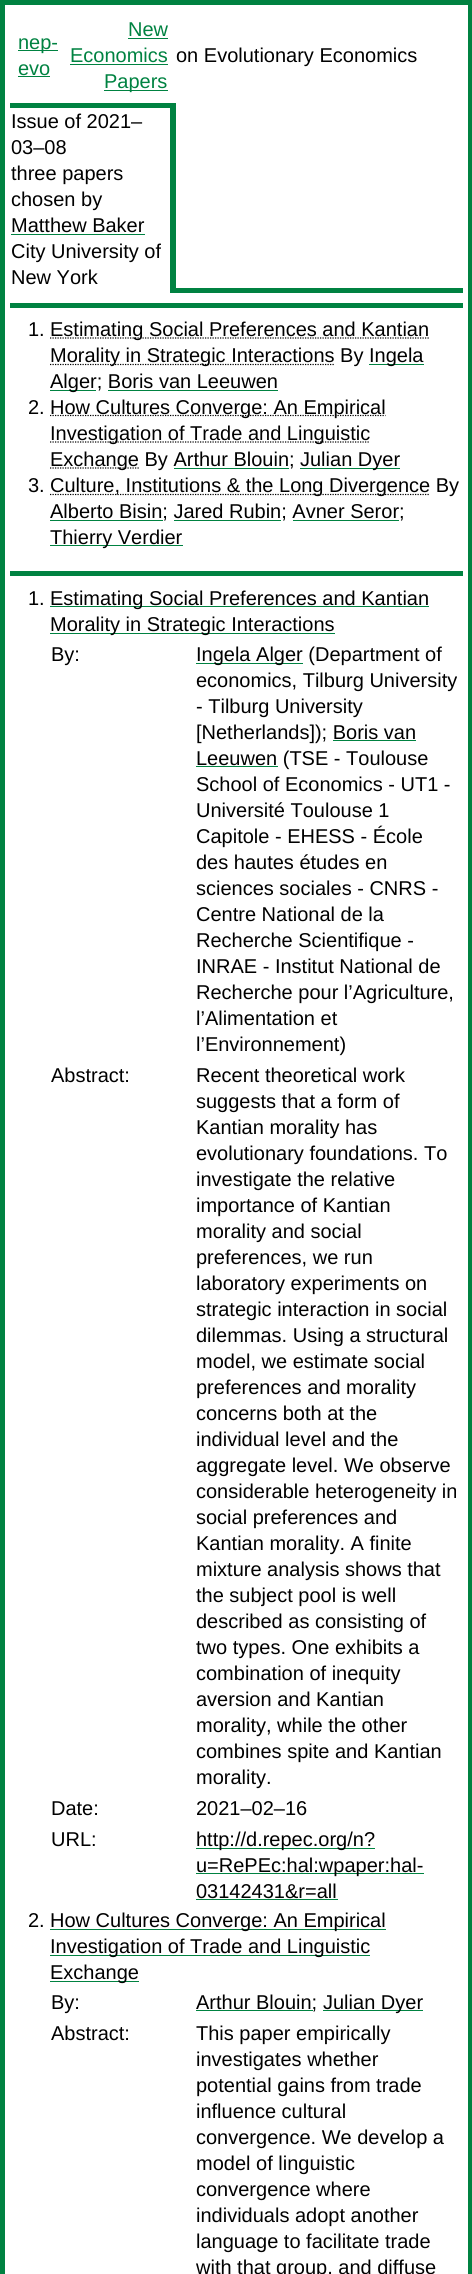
#include <cairo.h>
#include <math.h>
#include <stddef.h>


static void set_color(cairo_t *cr, unsigned color) {
    cairo_set_source_rgb(cr, (color >> 16) / 255.0, (color >> 8 & 255) / 255.0, (color & 255) / 255.0);
}

static void draw_text(cairo_t *cr, double x, double y, const char *s, const char *family, double size, int italic, int bold, unsigned color) {
    cairo_select_font_face(cr, family, italic ? CAIRO_FONT_SLANT_ITALIC : CAIRO_FONT_SLANT_NORMAL,
        bold ? CAIRO_FONT_WEIGHT_BOLD : CAIRO_FONT_WEIGHT_NORMAL);
    cairo_set_font_size(cr, size);
    set_color(cr, color);
    cairo_move_to(cr, x, y);
    cairo_show_text(cr, s);
}

static void fill_rect(cairo_t *cr, double x, double y, double w, double h, unsigned color) {
    set_color(cr, color);
    cairo_rectangle(cr, x, y, w, h);
    cairo_fill(cr);
}

int main(void) {
    cairo_surface_t *surface = cairo_image_surface_create(CAIRO_FORMAT_RGB24, 472, 2274);
    cairo_t *cr = cairo_create(surface);
    cairo_font_options_t *options = cairo_font_options_create();
    cairo_font_options_set_hint_metrics(options, CAIRO_HINT_METRICS_OFF);
    cairo_font_options_set_hint_style(options, CAIRO_HINT_STYLE_NONE);
    cairo_set_font_options(cr, options);
    cairo_set_miter_limit(cr, 4);
    set_color(cr, 0xFFFFFF);
    cairo_paint(cr);
    cairo_rectangle(cr, 2.5, 2.5, 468, 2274);
    set_color(cr, 0x008241);
    cairo_set_line_width(cr, 5);
    cairo_stroke(cr);
    fill_rect(cr, 18, 50, 40, 1, 0x008241);
    draw_text(cr, 18, 49, "nep-", "Liberation Sans", 20, 0, 0, 0x008241);
    draw_text(cr, 18, 75, "evo", "Liberation Sans", 20, 0, 0, 0x008241);
    fill_rect(cr, 18, 76, 32, 1, 0x008241);
    draw_text(cr, 128, 36, "New", "Liberation Sans", 20, 0, 0, 0x008241);
    fill_rect(cr, 128, 38, 40, 1, 0x008241);
    draw_text(cr, 70, 62, "Economics", "Liberation Sans", 20, 0, 0, 0x008241);
    fill_rect(cr, 70, 64, 98, 1, 0x008241);
    fill_rect(cr, 104, 90, 64, 1, 0x008241);
    draw_text(cr, 104, 88, "Papers", "Liberation Sans", 20, 0, 0, 0x008241);
    draw_text(cr, 176, 62, "on Evolutionary Economics", "Liberation Sans", 20, 0, 0, 0x000000);
    fill_rect(cr, 10, 103, 163, 5, 0x008241);
    fill_rect(cr, 170, 103, 3, 190, 0x008241);
    draw_text(cr, 11, 128, "Issue of 2021‒", "Liberation Sans", 20, 0, 0, 0x000000);
    draw_text(cr, 11, 154, "03‒08", "Liberation Sans", 20, 0, 0, 0x000000);
    draw_text(cr, 11, 180, "three papers", "Liberation Sans", 20, 0, 0, 0x000000);
    draw_text(cr, 11, 206, "chosen by", "Liberation Sans", 20, 0, 0, 0x000000);
    draw_text(cr, 11, 232, "Matthew Baker", "Liberation Sans", 20, 0, 0, 0x000000);
    fill_rect(cr, 11, 234, 134, 1, 0x008241);
    draw_text(cr, 11, 258, "City University of", "Liberation Sans", 20, 0, 0, 0x000000);
    draw_text(cr, 11, 284, "New York", "Liberation Sans", 20, 0, 0, 0x000000);
    fill_rect(cr, 173, 288, 290, 5, 0x008241);
    fill_rect(cr, 173, 103, 3, 190, 0x008241);
    fill_rect(cr, 10, 303, 453, 5, 0x008241);
    draw_text(cr, 28, 336, "1.", "Liberation Sans", 20, 0, 0, 0x000000);
    cairo_new_path(cr);
    cairo_move_to(cr, 50, 338);
    cairo_line_to(cr, 429, 338);
    cairo_set_line_width(cr, 1.2);
    cairo_set_dash(cr, (double[]){1.25, 1.25}, 2, 0);
    cairo_stroke(cr);
    draw_text(cr, 50, 336, "Estimating Social Preferences and Kantian", "Liberation Sans", 20, 0, 0, 0x000000);
    cairo_new_path(cr);
    cairo_move_to(cr, 50, 364.5);
    cairo_line_to(cr, 334.5, 364.5);
    cairo_stroke(cr);
    draw_text(cr, 50, 362, "Morality in Strategic Interactions By", "Liberation Sans", 20, 0, 0, 0x000000);
    fill_rect(cr, 369, 364, 55, 1, 0x008241);
    draw_text(cr, 369, 362, "Ingela", "Liberation Sans", 20, 0, 0, 0x000000);
    fill_rect(cr, 50, 390, 46, 1, 0x008241);
    draw_text(cr, 50, 388, "Alger; Boris van Leeuwen", "Liberation Sans", 20, 0, 0, 0x000000);
    fill_rect(cr, 108, 390, 170, 1, 0x008241);
    draw_text(cr, 28, 414, "2.", "Liberation Sans", 20, 0, 0, 0x000000);
    cairo_new_path(cr);
    cairo_move_to(cr, 50, 415.5);
    cairo_line_to(cr, 385.5, 415.5);
    cairo_stroke(cr);
    draw_text(cr, 50, 414, "How Cultures Converge: An Empirical", "Liberation Sans", 20, 0, 0, 0x000000);
    cairo_new_path(cr);
    cairo_move_to(cr, 50, 442);
    cairo_line_to(cr, 370, 442);
    cairo_stroke(cr);
    draw_text(cr, 50, 440, "Investigation of Trade and Linguistic", "Liberation Sans", 20, 0, 0, 0x000000);
    cairo_new_path(cr);
    cairo_move_to(cr, 50, 468);
    cairo_line_to(cr, 139, 468);
    cairo_stroke(cr);
    draw_text(cr, 50, 466, "Exchange By Arthur Blouin;", "Liberation Sans", 20, 0, 0, 0x000000);
    fill_rect(cr, 300, 468, 100, 1, 0x008241);
    draw_text(cr, 300, 466, "Julian Dyer", "Liberation Sans", 20, 0, 0, 0x000000);
    fill_rect(cr, 174, 468, 115, 1, 0x008241);
    draw_text(cr, 28, 492, "3.", "Liberation Sans", 20, 0, 0, 0x000000);
    cairo_new_path(cr);
    cairo_move_to(cr, 50, 494.5);
    cairo_line_to(cr, 430, 494.5);
    cairo_stroke(cr);
    draw_text(cr, 50, 492, "Culture, Institutions & the Long Divergence By", "Liberation Sans", 20, 0, 0, 0x000000);
    fill_rect(cr, 50, 520, 113, 1, 0x008241);
    draw_text(cr, 50, 518, "Alberto Bisin; Jared Rubin; Avner Seror;", "Liberation Sans", 20, 0, 0, 0x000000);
    fill_rect(cr, 174, 520, 107, 1, 0x008241);
    fill_rect(cr, 293, 520, 106, 1, 0x008241);
    fill_rect(cr, 50, 545, 133, 1, 0x008241);
    draw_text(cr, 50, 544, "Thierry Verdier", "Liberation Sans", 20, 0, 0, 0x000000);
    fill_rect(cr, 10, 571, 453, 5, 0x008241);
    draw_text(cr, 28, 605, "1.", "Liberation Sans", 20, 0, 0, 0x000000);
    fill_rect(cr, 50, 606, 379, 1, 0x008241);
    draw_text(cr, 50, 605, "Estimating Social Preferences and Kantian", "Liberation Sans", 20, 0, 0, 0x000000);
    fill_rect(cr, 50, 633, 285, 1, 0x008241);
    draw_text(cr, 50, 631, "Morality in Strategic Interactions", "Liberation Sans", 20, 0, 0, 0x000000);
    draw_text(cr, 51, 661, "By:", "Liberation Sans", 20, 0, 0, 0x000000);
    fill_rect(cr, 196, 663, 107, 1, 0x008241);
    draw_text(cr, 196, 661, "Ingela Alger (Department of", "Liberation Sans", 20, 0, 0, 0x000000);
    draw_text(cr, 196, 687, "economics, Tilburg University", "Liberation Sans", 20, 0, 0, 0x000000);
    draw_text(cr, 196, 713, "- Tilburg University", "Liberation Sans", 20, 0, 0, 0x000000);
    draw_text(cr, 196, 739, "[Netherlands]); Boris van", "Liberation Sans", 20, 0, 0, 0x000000);
    fill_rect(cr, 196, 766, 82, 1, 0x008241);
    draw_text(cr, 196, 765, "Leeuwen (TSE - Toulouse", "Liberation Sans", 20, 0, 0, 0x000000);
    fill_rect(cr, 333, 740, 83, 1, 0x008241);
    draw_text(cr, 196, 791, "School of Economics - UT1 -", "Liberation Sans", 20, 0, 0, 0x000000);
    draw_text(cr, 196, 817, "Université Toulouse 1", "Liberation Sans", 20, 0, 0, 0x000000);
    draw_text(cr, 196, 843, "Capitole - EHESS - École", "Liberation Sans", 20, 0, 0, 0x000000);
    draw_text(cr, 196, 869, "des hautes études en", "Liberation Sans", 20, 0, 0, 0x000000);
    draw_text(cr, 196, 895, "sciences sociales - CNRS -", "Liberation Sans", 20, 0, 0, 0x000000);
    draw_text(cr, 196, 921, "Centre National de la", "Liberation Sans", 20, 0, 0, 0x000000);
    draw_text(cr, 196, 947, "Recherche Scientifique -", "Liberation Sans", 20, 0, 0, 0x000000);
    draw_text(cr, 196, 973, "INRAE - Institut National de", "Liberation Sans", 20, 0, 0, 0x000000);
    draw_text(cr, 196, 999, "Recherche pour l’Agriculture,", "Liberation Sans", 20, 0, 0, 0x000000);
    draw_text(cr, 196, 1025, "l’Alimentation et", "Liberation Sans", 20, 0, 0, 0x000000);
    draw_text(cr, 196, 1051, "l’Environnement)", "Liberation Sans", 20, 0, 0, 0x000000);
    draw_text(cr, 51, 1082, "Abstract:", "Liberation Sans", 20, 0, 0, 0x000000);
    draw_text(cr, 196, 1082, "Recent theoretical work", "Liberation Sans", 20, 0, 0, 0x000000);
    draw_text(cr, 196, 1108, "suggests that a form of", "Liberation Sans", 20, 0, 0, 0x000000);
    draw_text(cr, 196, 1134, "Kantian morality has", "Liberation Sans", 20, 0, 0, 0x000000);
    draw_text(cr, 196, 1160, "evolutionary foundations. To", "Liberation Sans", 20, 0, 0, 0x000000);
    draw_text(cr, 196, 1186, "investigate the relative", "Liberation Sans", 20, 0, 0, 0x000000);
    draw_text(cr, 196, 1212, "importance of Kantian", "Liberation Sans", 20, 0, 0, 0x000000);
    draw_text(cr, 196, 1238, "morality and social", "Liberation Sans", 20, 0, 0, 0x000000);
    draw_text(cr, 196, 1264, "preferences, we run", "Liberation Sans", 20, 0, 0, 0x000000);
    draw_text(cr, 196, 1290, "laboratory experiments on", "Liberation Sans", 20, 0, 0, 0x000000);
    draw_text(cr, 196, 1316, "strategic interaction in social", "Liberation Sans", 20, 0, 0, 0x000000);
    draw_text(cr, 196, 1342, "dilemmas. Using a structural", "Liberation Sans", 20, 0, 0, 0x000000);
    draw_text(cr, 196, 1368, "model, we estimate social", "Liberation Sans", 20, 0, 0, 0x000000);
    draw_text(cr, 196, 1394, "preferences and morality", "Liberation Sans", 20, 0, 0, 0x000000);
    draw_text(cr, 196, 1420, "concerns both at the", "Liberation Sans", 20, 0, 0, 0x000000);
    draw_text(cr, 196, 1446, "individual level and the", "Liberation Sans", 20, 0, 0, 0x000000);
    draw_text(cr, 196, 1472, "aggregate level. We observe", "Liberation Sans", 20, 0, 0, 0x000000);
    draw_text(cr, 196, 1498, "considerable heterogeneity in", "Liberation Sans", 20, 0, 0, 0x000000);
    draw_text(cr, 196, 1524, "social preferences and", "Liberation Sans", 20, 0, 0, 0x000000);
    draw_text(cr, 196, 1550, "Kantian morality. A finite", "Liberation Sans", 20, 0, 0, 0x000000);
    draw_text(cr, 196, 1576, "mixture analysis shows that", "Liberation Sans", 20, 0, 0, 0x000000);
    draw_text(cr, 196, 1602, "the subject pool is well", "Liberation Sans", 20, 0, 0, 0x000000);
    draw_text(cr, 196, 1628, "described as consisting of", "Liberation Sans", 20, 0, 0, 0x000000);
    draw_text(cr, 196, 1654, "two types. One exhibits a", "Liberation Sans", 20, 0, 0, 0x000000);
    draw_text(cr, 196, 1680, "combination of inequity", "Liberation Sans", 20, 0, 0, 0x000000);
    draw_text(cr, 196, 1706, "aversion and Kantian", "Liberation Sans", 20, 0, 0, 0x000000);
    draw_text(cr, 196, 1732, "morality, while the other", "Liberation Sans", 20, 0, 0, 0x000000);
    draw_text(cr, 196, 1758, "combines spite and Kantian", "Liberation Sans", 20, 0, 0, 0x000000);
    draw_text(cr, 196, 1784, "morality.", "Liberation Sans", 20, 0, 0, 0x000000);
    draw_text(cr, 51, 1815, "Date:", "Liberation Sans", 20, 0, 0, 0x000000);
    draw_text(cr, 196, 1815, "2021–02–16", "Liberation Sans", 20, 0, 0, 0x000000);
    draw_text(cr, 51, 1846, "URL:", "Liberation Sans", 20, 0, 0, 0x000000);
    fill_rect(cr, 196, 1848, 179, 1, 0x008241);
    draw_text(cr, 196, 1846, "http://d.repec.org/n?", "Liberation Sans", 20, 0, 0, 0x000000);
    fill_rect(cr, 196, 1873, 228, 1, 0x008241);
    draw_text(cr, 196, 1872, "u=RePEc:hal:wpaper:hal-", "Liberation Sans", 20, 0, 0, 0x000000);
    draw_text(cr, 196, 1898, "03142431&r=all", "Liberation Sans", 20, 0, 0, 0x000000);
    fill_rect(cr, 196, 1899, 142, 1, 0x008241);
    draw_text(cr, 28, 1927, "2.", "Liberation Sans", 20, 0, 0, 0x000000);
    fill_rect(cr, 50, 1929, 336, 1, 0x008241);
    draw_text(cr, 50, 1927, "How Cultures Converge: An Empirical", "Liberation Sans", 20, 0, 0, 0x000000);
    fill_rect(cr, 50, 1955, 320, 1, 0x008241);
    draw_text(cr, 50, 1953, "Investigation of Trade and Linguistic", "Liberation Sans", 20, 0, 0, 0x000000);
    fill_rect(cr, 50, 1981, 89, 1, 0x008241);
    draw_text(cr, 50, 1979, "Exchange", "Liberation Sans", 20, 0, 0, 0x000000);
    draw_text(cr, 51, 2009, "By:", "Liberation Sans", 20, 0, 0, 0x000000);
    fill_rect(cr, 196, 2010, 117, 1, 0x008241);
    draw_text(cr, 196, 2009, "Arthur Blouin;", "Liberation Sans", 20, 0, 0, 0x000000);
    fill_rect(cr, 323, 2010, 100, 1, 0x008241);
    draw_text(cr, 323, 2009, "Julian Dyer", "Liberation Sans", 20, 0, 0, 0x000000);
    draw_text(cr, 51, 2040, "Abstract:", "Liberation Sans", 20, 0, 0, 0x000000);
    draw_text(cr, 196, 2040, "This paper empirically", "Liberation Sans", 20, 0, 0, 0x000000);
    draw_text(cr, 196, 2066, "investigates whether", "Liberation Sans", 20, 0, 0, 0x000000);
    draw_text(cr, 196, 2092, "potential gains from trade", "Liberation Sans", 20, 0, 0, 0x000000);
    draw_text(cr, 196, 2118, "influence cultural", "Liberation Sans", 20, 0, 0, 0x000000);
    draw_text(cr, 196, 2144, "convergence. We develop a", "Liberation Sans", 20, 0, 0, 0x000000);
    draw_text(cr, 196, 2170, "model of linguistic", "Liberation Sans", 20, 0, 0, 0x000000);
    draw_text(cr, 196, 2196, "convergence where", "Liberation Sans", 20, 0, 0, 0x000000);
    draw_text(cr, 196, 2222, "individuals adopt another", "Liberation Sans", 20, 0, 0, 0x000000);
    draw_text(cr, 196, 2248, "language to facilitate trade", "Liberation Sans", 20, 0, 0, 0x000000);
    draw_text(cr, 196, 2274, "with that group, and diffuse", "Liberation Sans", 20, 0, 0, 0x000000);
    cairo_surface_write_to_png(surface, "output.png");
    cairo_font_options_destroy(options);
    cairo_destroy(cr);
    cairo_surface_destroy(surface);
    return 0;
}
